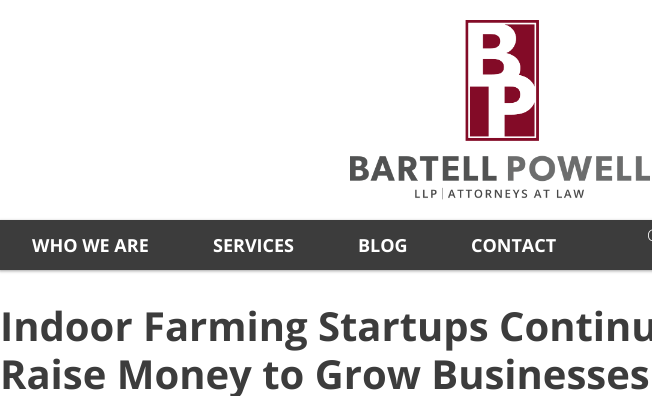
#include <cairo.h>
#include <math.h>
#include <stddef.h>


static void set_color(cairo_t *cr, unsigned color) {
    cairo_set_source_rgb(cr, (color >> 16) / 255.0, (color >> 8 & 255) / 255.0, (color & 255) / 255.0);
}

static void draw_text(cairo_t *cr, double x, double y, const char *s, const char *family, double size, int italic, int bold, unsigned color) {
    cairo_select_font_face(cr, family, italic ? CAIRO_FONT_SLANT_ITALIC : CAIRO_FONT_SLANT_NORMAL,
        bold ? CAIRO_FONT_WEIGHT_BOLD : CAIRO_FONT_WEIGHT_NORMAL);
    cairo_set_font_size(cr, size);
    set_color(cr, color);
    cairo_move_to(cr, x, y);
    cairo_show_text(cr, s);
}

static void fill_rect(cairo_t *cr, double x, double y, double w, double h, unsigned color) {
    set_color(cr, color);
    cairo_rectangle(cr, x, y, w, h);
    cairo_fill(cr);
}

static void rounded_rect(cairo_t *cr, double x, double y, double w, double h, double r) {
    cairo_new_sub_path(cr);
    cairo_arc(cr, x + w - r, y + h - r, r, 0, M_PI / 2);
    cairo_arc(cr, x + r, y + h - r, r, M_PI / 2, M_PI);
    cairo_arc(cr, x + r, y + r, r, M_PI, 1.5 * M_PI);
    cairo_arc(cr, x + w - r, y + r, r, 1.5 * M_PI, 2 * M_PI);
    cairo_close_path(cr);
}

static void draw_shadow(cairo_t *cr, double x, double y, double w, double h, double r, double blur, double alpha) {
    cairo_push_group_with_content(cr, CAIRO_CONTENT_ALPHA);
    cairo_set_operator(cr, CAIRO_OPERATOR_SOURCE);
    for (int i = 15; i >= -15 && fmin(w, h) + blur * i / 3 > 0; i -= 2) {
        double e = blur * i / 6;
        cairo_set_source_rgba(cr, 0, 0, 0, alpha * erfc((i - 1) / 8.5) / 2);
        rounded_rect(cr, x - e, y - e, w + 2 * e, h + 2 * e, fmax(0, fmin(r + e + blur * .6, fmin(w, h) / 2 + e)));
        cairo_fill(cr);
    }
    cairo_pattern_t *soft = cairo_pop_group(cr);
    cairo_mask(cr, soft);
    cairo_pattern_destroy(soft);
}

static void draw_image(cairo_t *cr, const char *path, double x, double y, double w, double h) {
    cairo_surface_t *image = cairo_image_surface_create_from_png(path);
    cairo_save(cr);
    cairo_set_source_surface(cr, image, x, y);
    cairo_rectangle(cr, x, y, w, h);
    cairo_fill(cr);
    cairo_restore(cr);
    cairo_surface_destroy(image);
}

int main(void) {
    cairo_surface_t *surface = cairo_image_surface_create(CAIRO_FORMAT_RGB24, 652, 396);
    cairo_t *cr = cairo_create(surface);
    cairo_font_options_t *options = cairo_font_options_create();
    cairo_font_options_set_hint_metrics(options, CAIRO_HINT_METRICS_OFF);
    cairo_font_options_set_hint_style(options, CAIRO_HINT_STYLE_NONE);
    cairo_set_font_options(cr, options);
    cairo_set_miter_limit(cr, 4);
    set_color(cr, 0xFFFFFF);
    cairo_paint(cr);
    draw_image(cr, "assets/img1.png", 350, 20, 300, 180);
    set_color(cr, 0x646464);
    draw_shadow(cr, 0, 221, 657, 50, 0, 1.5, 0.6);
    fill_rect(cr, 0, 220, 652, 50, 0x3C3C3C);
    draw_text(cr, 647, 241, "C", "Open Sans Light", 16, 0, 0, 0xFFFFFF);
    draw_text(cr, 32, 252, "WHO WE ARE", "Open Sans", 18, 0, 1, 0xFFFFFF);
    draw_text(cr, 213, 252, "SERVICES", "Open Sans", 18, 0, 1, 0xFFFFFF);
    draw_text(cr, 358, 252, "BLOG", "Open Sans", 18, 0, 1, 0xFFFFFF);
    draw_text(cr, 471, 252, "CONTACT", "Open Sans", 18, 0, 1, 0xFFFFFF);
    draw_text(cr, 0, 341, "Indoor Farming Startups Continu", "Open Sans", 40, 0, 1, 0x3C3C3C);
    draw_text(cr, 0, 389, "Raise Money to Grow Businesses", "Open Sans", 40, 0, 1, 0x3C3C3C);
    cairo_surface_write_to_png(surface, "output.png");
    cairo_font_options_destroy(options);
    cairo_destroy(cr);
    cairo_surface_destroy(surface);
    return 0;
}
